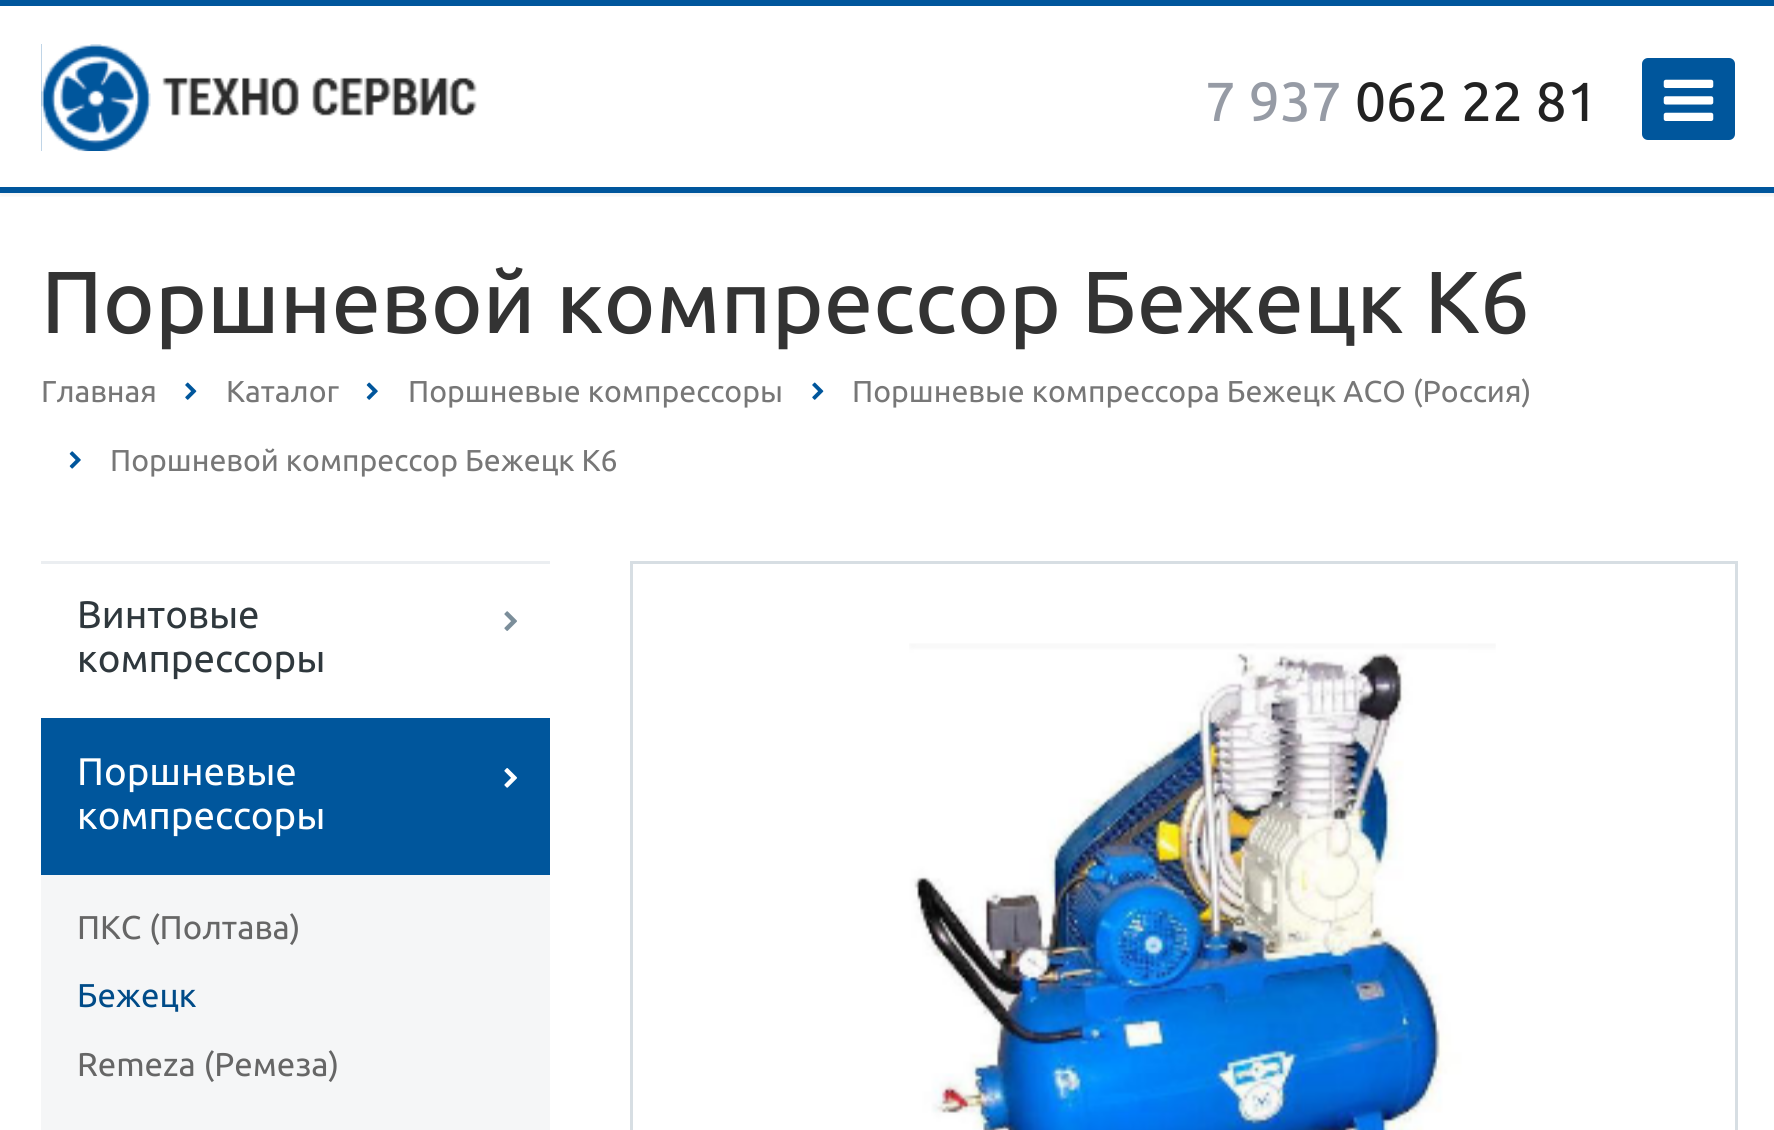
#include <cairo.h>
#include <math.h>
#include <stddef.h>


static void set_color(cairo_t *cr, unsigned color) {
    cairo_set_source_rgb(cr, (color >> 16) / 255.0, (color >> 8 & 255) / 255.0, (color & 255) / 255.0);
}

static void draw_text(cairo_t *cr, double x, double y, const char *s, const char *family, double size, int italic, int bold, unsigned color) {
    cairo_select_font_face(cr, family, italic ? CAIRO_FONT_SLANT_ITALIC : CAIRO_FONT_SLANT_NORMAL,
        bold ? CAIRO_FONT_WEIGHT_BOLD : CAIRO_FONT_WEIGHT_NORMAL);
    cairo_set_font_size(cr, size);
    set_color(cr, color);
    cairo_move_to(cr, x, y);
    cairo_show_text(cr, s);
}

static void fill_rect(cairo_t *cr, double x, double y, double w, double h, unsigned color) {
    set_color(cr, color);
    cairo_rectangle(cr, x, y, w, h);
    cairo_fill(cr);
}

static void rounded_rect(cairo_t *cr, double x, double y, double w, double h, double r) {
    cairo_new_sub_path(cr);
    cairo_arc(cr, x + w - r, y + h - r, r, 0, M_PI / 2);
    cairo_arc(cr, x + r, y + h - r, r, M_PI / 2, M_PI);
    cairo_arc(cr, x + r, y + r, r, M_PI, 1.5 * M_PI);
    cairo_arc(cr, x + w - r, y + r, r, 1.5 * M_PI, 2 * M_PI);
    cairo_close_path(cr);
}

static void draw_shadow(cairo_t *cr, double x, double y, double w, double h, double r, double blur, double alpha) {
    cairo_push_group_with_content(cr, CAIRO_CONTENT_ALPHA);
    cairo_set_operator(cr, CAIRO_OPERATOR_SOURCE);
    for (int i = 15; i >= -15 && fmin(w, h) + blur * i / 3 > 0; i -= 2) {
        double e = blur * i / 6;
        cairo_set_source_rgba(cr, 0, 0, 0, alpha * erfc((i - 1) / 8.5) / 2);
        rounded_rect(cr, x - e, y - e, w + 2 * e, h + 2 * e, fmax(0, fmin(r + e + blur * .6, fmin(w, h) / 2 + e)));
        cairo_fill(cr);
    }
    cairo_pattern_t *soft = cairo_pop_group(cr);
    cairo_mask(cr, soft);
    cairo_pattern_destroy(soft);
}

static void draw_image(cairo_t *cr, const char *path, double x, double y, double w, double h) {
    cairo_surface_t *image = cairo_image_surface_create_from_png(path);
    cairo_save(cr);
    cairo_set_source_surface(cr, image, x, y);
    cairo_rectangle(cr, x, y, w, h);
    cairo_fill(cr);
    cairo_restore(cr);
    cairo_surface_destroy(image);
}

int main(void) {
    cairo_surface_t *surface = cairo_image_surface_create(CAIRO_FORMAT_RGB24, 1774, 1130);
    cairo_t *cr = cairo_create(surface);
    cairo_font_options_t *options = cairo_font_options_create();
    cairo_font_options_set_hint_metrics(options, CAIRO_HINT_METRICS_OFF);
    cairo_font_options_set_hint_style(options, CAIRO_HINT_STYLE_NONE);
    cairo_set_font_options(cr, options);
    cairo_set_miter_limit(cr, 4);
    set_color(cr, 0xFFFFFF);
    cairo_paint(cr);
    cairo_save(cr);
    cairo_rectangle(cr, 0, 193, 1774, 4);
    cairo_clip(cr);
    set_color(cr, 0x000000);
    draw_shadow(cr, 0, 3, 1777, 187, 0, 7, 0.14);
    cairo_restore(cr);
    fill_rect(cr, 0, 0, 1774, 6, 0x00569C);
    fill_rect(cr, 41, 44, 110, 107, 0x00569C);
    draw_image(cr, "assets/img1.png", 41, 44, 454, 108);
    draw_text(cr, 1205, 121, "7 937", "Ubuntu Medium", 55, 0, 0, 0x969BA5);
    draw_text(cr, 1355, 121, "062 22 81", "Ubuntu Medium", 55, 0, 0, 0x222222);
    set_color(cr, 0x00569C);
    rounded_rect(cr, 1642, 58, 93, 82, 6);
    cairo_fill(cr);
    draw_image(cr, "assets/img2.png", 1663, 79, 51, 42);
    fill_rect(cr, 0, 187, 1774, 6, 0x00569C);
    draw_text(cr, 41, 333, "Поршневой компрессор Бежецк К6", "Ubuntu Medium", 88, 0, 0, 0x333333);
    draw_text(cr, 41, 402, "Главная", "Ubuntu", 30.25, 0, 0, 0x777777);
    draw_image(cr, "assets/img3.png", 185, 382, 12, 18);
    draw_text(cr, 226, 402, "Каталог", "Ubuntu", 30.25, 0, 0, 0x777777);
    draw_image(cr, "assets/img4.png", 366, 382, 12, 18);
    draw_text(cr, 408, 402, "Поршневые компрессоры", "Ubuntu", 30.25, 0, 0, 0x777777);
    draw_image(cr, "assets/img3.png", 812, 382, 12, 18);
    draw_text(cr, 852, 402, "Поршневые компрессора Бежецк АСО (Россия)", "Ubuntu", 30.25, 0, 0, 0x777777);
    draw_image(cr, "assets/img5.png", 69, 451, 12, 18);
    draw_text(cr, 110, 471, "Поршневой компрессор Бежецк К6", "Ubuntu", 30.25, 0, 0, 0x777777);
    fill_rect(cr, 41, 561, 509, 3, 0xEBEEF1);
    draw_text(cr, 77, 628, "Винтовые", "Ubuntu", 38.5, 0, 0, 0x2F383D);
    draw_image(cr, "assets/img6.png", 504, 611, 13, 20);
    draw_text(cr, 77, 672, "компрессоры", "Ubuntu", 38.5, 0, 0, 0x2F383D);
    fill_rect(cr, 41, 718, 509, 157, 0x00569C);
    draw_text(cr, 77, 785, "Поршневые", "Ubuntu", 38.5, 0, 0, 0xFFFFFF);
    draw_image(cr, "assets/img7.png", 504, 768, 13, 20);
    draw_text(cr, 77, 829, "компрессоры", "Ubuntu", 38.5, 0, 0, 0xFFFFFF);
    fill_rect(cr, 41, 875, 509, 255, 0xF5F6F7);
    draw_text(cr, 77, 939, "ПКС (Полтава)", "Ubuntu", 33, 0, 0, 0x666666);
    draw_text(cr, 77, 1007, "Бежецк", "Ubuntu", 33, 0, 0, 0x004B88);
    draw_text(cr, 77, 1076, "Remeza (Ремеза)", "Ubuntu", 33, 0, 0, 0x666666);
    cairo_rectangle(cr, 631.5, 562.5, 1105, 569);
    set_color(cr, 0xD7DEE3);
    cairo_set_line_width(cr, 3);
    cairo_stroke(cr);
    draw_image(cr, "assets/img8.png", 909, 643, 587, 487);
    cairo_surface_write_to_png(surface, "output.png");
    cairo_font_options_destroy(options);
    cairo_destroy(cr);
    cairo_surface_destroy(surface);
    return 0;
}
